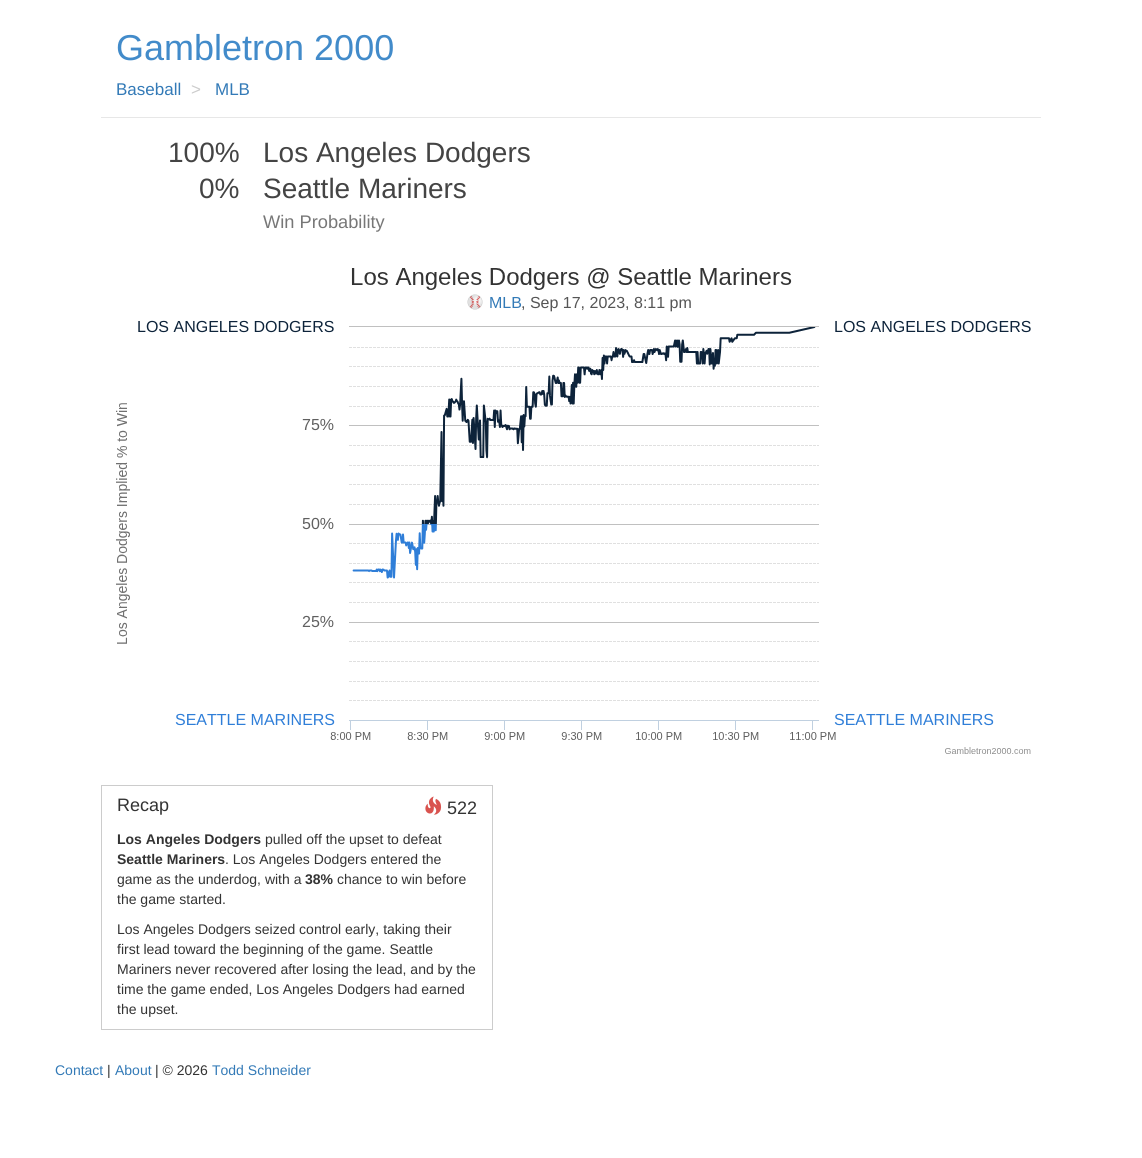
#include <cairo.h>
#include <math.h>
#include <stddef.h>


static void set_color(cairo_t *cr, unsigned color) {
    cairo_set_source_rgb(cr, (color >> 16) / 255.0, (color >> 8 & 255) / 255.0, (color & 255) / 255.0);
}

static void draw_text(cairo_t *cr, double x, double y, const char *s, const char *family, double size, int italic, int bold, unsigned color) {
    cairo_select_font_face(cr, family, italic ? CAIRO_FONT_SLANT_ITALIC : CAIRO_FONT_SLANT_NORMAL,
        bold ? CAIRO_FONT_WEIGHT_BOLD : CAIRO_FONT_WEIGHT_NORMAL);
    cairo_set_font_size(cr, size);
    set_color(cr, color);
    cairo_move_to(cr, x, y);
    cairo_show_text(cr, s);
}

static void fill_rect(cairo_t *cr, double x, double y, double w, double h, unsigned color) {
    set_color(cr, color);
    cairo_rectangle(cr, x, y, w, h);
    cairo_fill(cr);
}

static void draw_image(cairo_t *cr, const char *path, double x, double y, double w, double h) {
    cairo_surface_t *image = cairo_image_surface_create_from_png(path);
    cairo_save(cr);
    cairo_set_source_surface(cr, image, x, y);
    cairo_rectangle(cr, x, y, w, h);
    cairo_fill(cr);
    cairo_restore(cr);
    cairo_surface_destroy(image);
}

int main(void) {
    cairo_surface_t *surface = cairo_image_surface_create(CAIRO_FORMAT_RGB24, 1142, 1158);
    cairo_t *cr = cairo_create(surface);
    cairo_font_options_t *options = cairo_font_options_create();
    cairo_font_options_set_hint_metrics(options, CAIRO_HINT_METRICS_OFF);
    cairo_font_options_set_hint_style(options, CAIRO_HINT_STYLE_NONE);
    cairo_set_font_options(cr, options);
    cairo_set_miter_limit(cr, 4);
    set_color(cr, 0xFFFFFF);
    cairo_paint(cr);
    fill_rect(cr, 101, 117, 940, 1, 0xE7E7E7);
    draw_text(cr, 116, 60, "Gambletron 2000", "Liberation Sans", 36, 0, 0, 0x428BCA);
    draw_text(cr, 116, 95, "Baseball", "Liberation Sans", 17, 0, 0, 0x337AB7);
    draw_text(cr, 191, 95, ">", "Liberation Sans", 17, 0, 0, 0xCCCCCC);
    draw_text(cr, 215, 95, "MLB", "Liberation Sans", 17, 0, 0, 0x337AB7);
    draw_text(cr, 168, 162, "100%", "Liberation Sans", 28, 0, 0, 0x444444);
    draw_text(cr, 263, 162, "Los Angeles Dodgers", "Liberation Sans", 28, 0, 0, 0x444444);
    draw_text(cr, 199, 198, "0%", "Liberation Sans", 28, 0, 0, 0x444444);
    draw_text(cr, 263, 198, "Seattle Mariners", "Liberation Sans", 28, 0, 0, 0x444444);
    draw_text(cr, 263, 228, "Win Probability", "Liberation Sans", 18.25, 0, 0, 0x777777);
    draw_image(cr, "assets/img1.png", 116, 268, 915, 486);
    draw_image(cr, "assets/img2.png", 467, 294, 16, 16);
    draw_text(cr, 489, 308, "MLB", "Liberation Sans", 16, 0, 0, 0x337AB7);
    draw_text(cr, 521, 308, ", Sep 17, 2023, 8:11 pm", "Liberation Sans", 16, 0, 0, 0x555555);
    draw_text(cr, 137, 332, "LOS ANGELES DODGERS", "Liberation Sans", 16, 0, 0, 0x0D233A);
    draw_text(cr, 302, 430, "75%", "Liberation Sans", 16, 0, 0, 0x606060);
    draw_text(cr, 302, 529, "50%", "Liberation Sans", 16, 0, 0, 0x606060);
    draw_text(cr, 302, 627, "25%", "Liberation Sans", 16, 0, 0, 0x606060);
    draw_text(cr, 175, 725, "SEATTLE MARINERS", "Liberation Sans", 16, 0, 0, 0x2F7ED8);
    draw_text(cr, 834, 332, "LOS ANGELES DODGERS", "Liberation Sans", 16, 0, 0, 0x0D233A);
    draw_text(cr, 834, 725, "SEATTLE MARINERS", "Liberation Sans", 16, 0, 0, 0x2F7ED8);
    cairo_rectangle(cr, 101.5, 785.5, 391, 244);
    set_color(cr, 0xCCCCCC);
    cairo_set_line_width(cr, 1);
    cairo_stroke(cr);
    draw_text(cr, 117, 811, "Recap", "Liberation Sans", 18, 0, 0, 0x333333);
    draw_image(cr, "assets/img3.png", 425, 796, 17, 19);
    draw_text(cr, 447, 814, "522", "Liberation Sans", 18, 0, 0, 0x333333);
    draw_text(cr, 117, 844, "Los Angeles Dodgers", "Liberation Sans", 14, 0, 1, 0x333333);
    draw_text(cr, 265, 844, "pulled off the upset to defeat", "Liberation Sans", 14, 0, 0, 0x333333);
    draw_text(cr, 117, 864, "Seattle Mariners", "Liberation Sans", 14, 0, 1, 0x333333);
    draw_text(cr, 225, 864, ". Los Angeles Dodgers entered the", "Liberation Sans", 14, 0, 0, 0x333333);
    draw_text(cr, 117, 884, "game as the underdog, with a", "Liberation Sans", 14, 0, 0, 0x333333);
    draw_text(cr, 305, 884, "38%", "Liberation Sans", 14, 0, 1, 0x333333);
    draw_text(cr, 337, 884, "chance to win before", "Liberation Sans", 14, 0, 0, 0x333333);
    draw_text(cr, 117, 904, "the game started.", "Liberation Sans", 14, 0, 0, 0x333333);
    draw_text(cr, 117, 934, "Los Angeles Dodgers seized control early, taking their", "Liberation Sans", 14, 0, 0, 0x333333);
    draw_text(cr, 117, 954, "first lead toward the beginning of the game. Seattle", "Liberation Sans", 14, 0, 0, 0x333333);
    draw_text(cr, 117, 974, "Mariners never recovered after losing the lead, and by the", "Liberation Sans", 14, 0, 0, 0x333333);
    draw_text(cr, 117, 994, "time the game ended, Los Angeles Dodgers had earned", "Liberation Sans", 14, 0, 0, 0x333333);
    draw_text(cr, 117, 1014, "the upset.", "Liberation Sans", 14, 0, 0, 0x333333);
    draw_text(cr, 55, 1075, "Contact", "Liberation Sans", 14, 0, 0, 0x337AB7);
    draw_text(cr, 107, 1075, "|", "Liberation Sans", 14, 0, 0, 0x333333);
    draw_text(cr, 115, 1075, "About", "Liberation Sans", 14, 0, 0, 0x337AB7);
    draw_text(cr, 155, 1075, "| © 2026", "Liberation Sans", 14, 0, 0, 0x333333);
    draw_text(cr, 212, 1075, "Todd Schneider", "Liberation Sans", 14, 0, 0, 0x337AB7);
    cairo_surface_write_to_png(surface, "output.png");
    cairo_font_options_destroy(options);
    cairo_destroy(cr);
    cairo_surface_destroy(surface);
    return 0;
}
